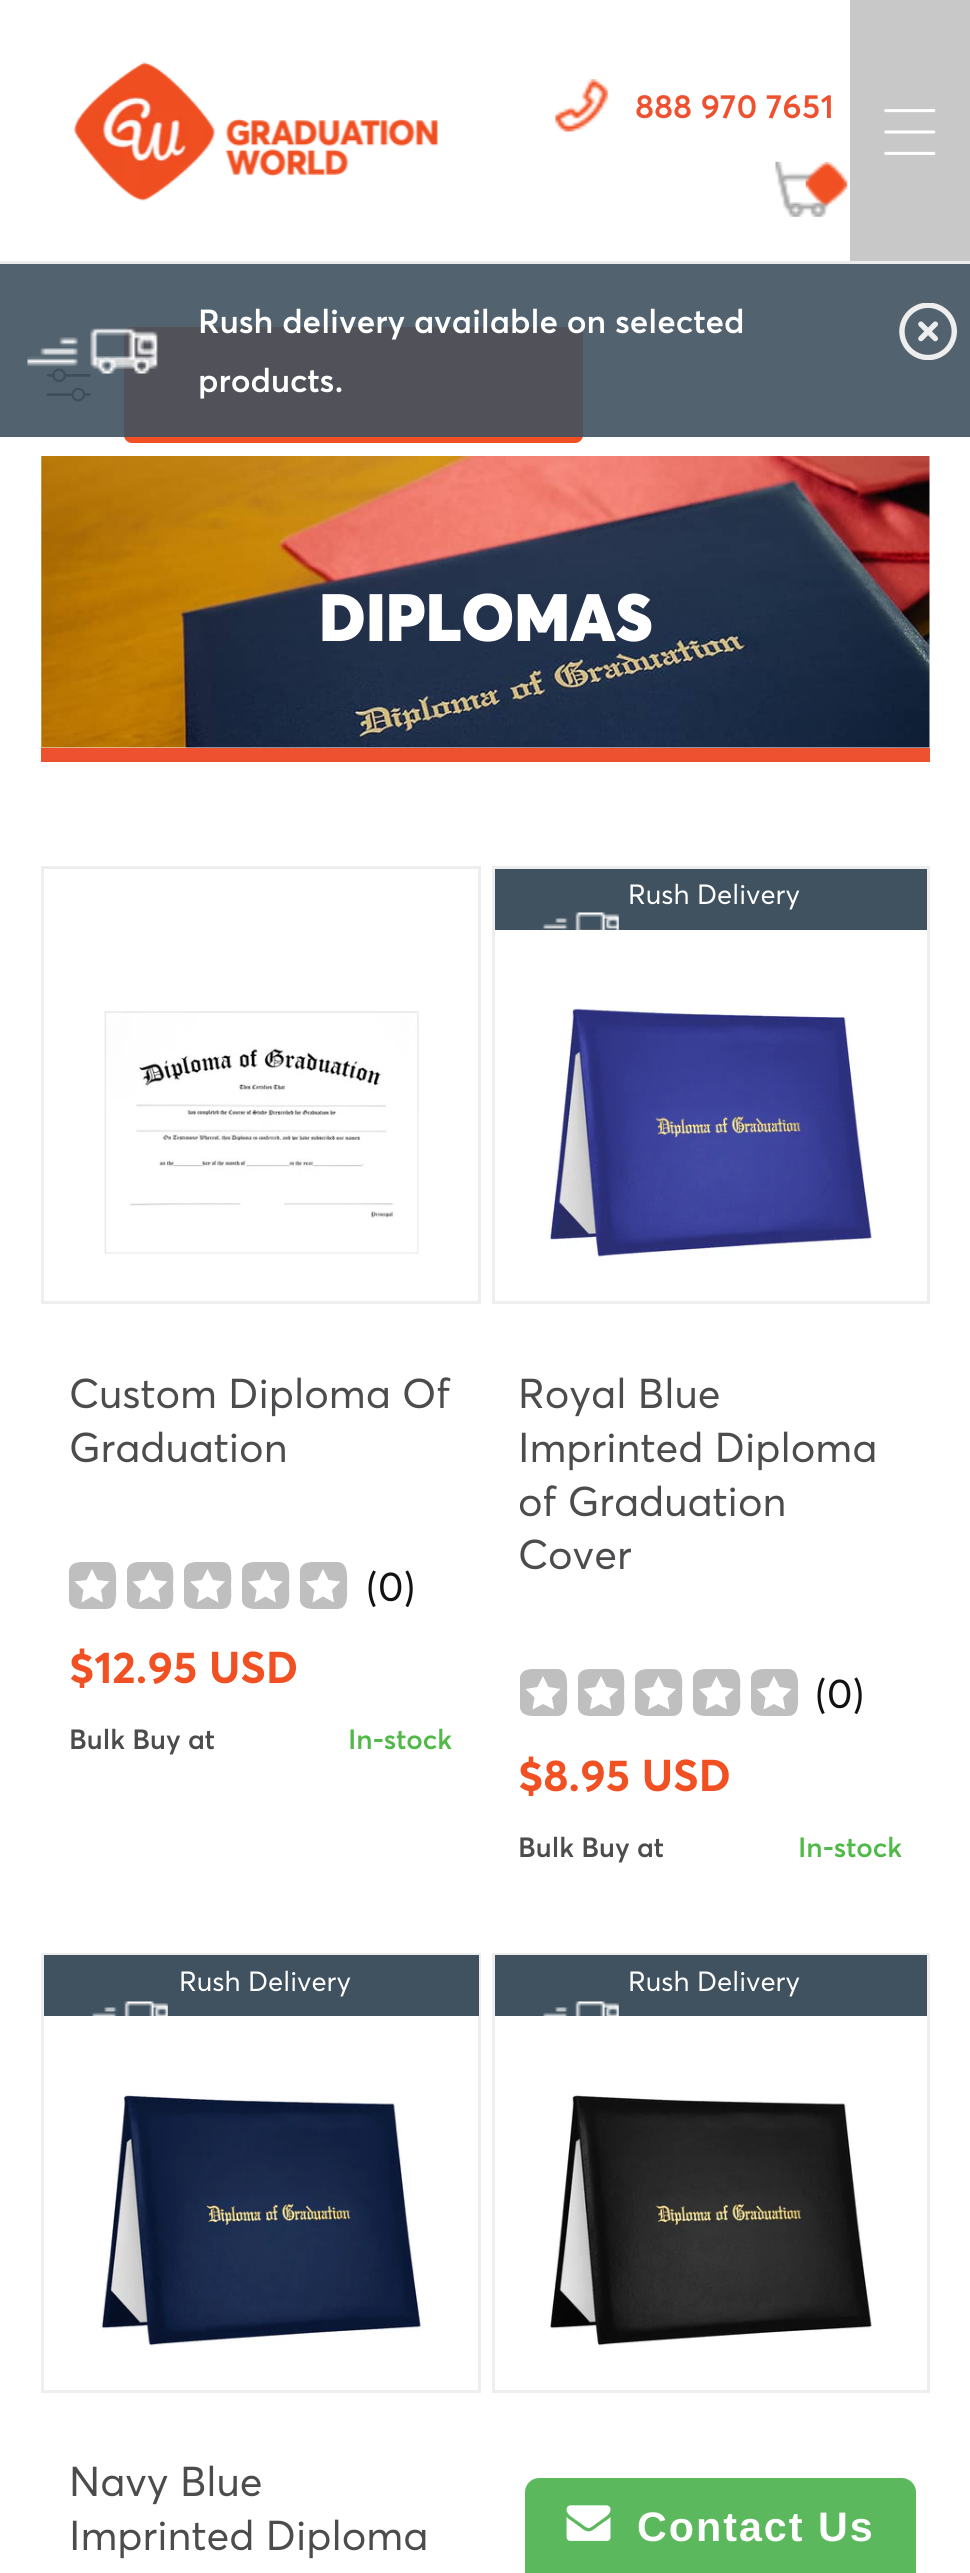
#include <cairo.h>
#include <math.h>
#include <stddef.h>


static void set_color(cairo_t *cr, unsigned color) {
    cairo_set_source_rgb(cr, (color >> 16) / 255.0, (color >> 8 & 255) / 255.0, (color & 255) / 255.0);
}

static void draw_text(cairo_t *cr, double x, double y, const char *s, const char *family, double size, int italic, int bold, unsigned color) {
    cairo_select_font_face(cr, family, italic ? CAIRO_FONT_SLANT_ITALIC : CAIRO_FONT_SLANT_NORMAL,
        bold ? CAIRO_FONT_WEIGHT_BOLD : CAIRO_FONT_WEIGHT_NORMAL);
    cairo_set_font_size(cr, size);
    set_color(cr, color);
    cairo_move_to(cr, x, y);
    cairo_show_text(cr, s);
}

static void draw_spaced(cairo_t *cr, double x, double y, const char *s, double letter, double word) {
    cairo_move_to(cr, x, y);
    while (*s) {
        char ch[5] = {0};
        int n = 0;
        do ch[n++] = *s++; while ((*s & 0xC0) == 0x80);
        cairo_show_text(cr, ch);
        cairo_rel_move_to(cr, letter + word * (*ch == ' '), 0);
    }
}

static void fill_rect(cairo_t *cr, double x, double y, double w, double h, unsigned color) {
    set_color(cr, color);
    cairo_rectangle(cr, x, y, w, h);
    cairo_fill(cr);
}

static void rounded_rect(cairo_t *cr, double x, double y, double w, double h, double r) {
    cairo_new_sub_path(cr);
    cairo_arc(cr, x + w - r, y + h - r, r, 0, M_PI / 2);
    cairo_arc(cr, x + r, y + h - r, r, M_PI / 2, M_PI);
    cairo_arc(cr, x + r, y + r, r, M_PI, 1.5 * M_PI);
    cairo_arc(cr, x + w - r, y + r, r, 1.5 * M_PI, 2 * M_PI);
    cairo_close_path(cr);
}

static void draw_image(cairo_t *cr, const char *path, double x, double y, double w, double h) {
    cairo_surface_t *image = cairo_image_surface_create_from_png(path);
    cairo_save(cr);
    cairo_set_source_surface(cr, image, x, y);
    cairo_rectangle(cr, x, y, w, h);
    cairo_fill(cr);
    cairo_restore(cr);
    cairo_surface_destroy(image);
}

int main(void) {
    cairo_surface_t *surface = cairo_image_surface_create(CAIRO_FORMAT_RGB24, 970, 2573);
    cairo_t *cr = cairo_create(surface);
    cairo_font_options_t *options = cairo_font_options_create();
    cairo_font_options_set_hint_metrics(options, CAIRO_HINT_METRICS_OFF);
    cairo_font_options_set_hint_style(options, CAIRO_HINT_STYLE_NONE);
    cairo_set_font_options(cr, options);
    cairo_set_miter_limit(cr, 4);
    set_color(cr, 0xFFFFFF);
    cairo_paint(cr);
    fill_rect(cr, 0, 261, 970, 3, 0xECECEC);
    draw_image(cr, "assets/img1.png", 73, 62, 365, 139);
    draw_image(cr, "assets/img2.png", 555, 79, 54, 53);
    draw_text(cr, 635, 118, "888 970 7651", "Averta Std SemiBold", 33, 0, 0, 0xEE512F);
    draw_image(cr, "assets/img3.png", 775, 161, 57, 56);
    draw_image(cr, "assets/img4.png", 805, 161, 43, 45);
    fill_rect(cr, 850, 0, 120, 261, 0xC8C8C8);
    draw_image(cr, "assets/img5.png", 884, 109, 52, 46);
    draw_image(cr, "assets/img8.png", 46, 368, 45, 34);
    set_color(cr, 0xF15023);
    rounded_rect(cr, 124, 327, 459, 116, 8);
    cairo_fill(cr);
    cairo_set_source_rgba(cr, 0.251, 0.322, 0.376, 0.9);
    cairo_rectangle(cr, 0, 264, 970, 173);
    cairo_fill(cr);
    draw_text(cr, 198, 333, "Rush delivery available on selected", "Averta Std SemiBold", 33, 0, 0, 0xFFFFFF);
    draw_image(cr, "assets/img6.png", 27, 328, 131, 46);
    draw_text(cr, 198, 392, "products.", "Averta Std SemiBold", 33, 0, 0, 0xFFFFFF);
    draw_image(cr, "assets/img7.png", 899, 303, 58, 57);
    draw_image(cr, "assets/img9.png", 41, 456, 889, 292);
    draw_text(cr, 319, 641, "DIPLOMAS", "Averta Std Black", 66, 0, 0, 0xFFFFFF);
    fill_rect(cr, 41, 748, 889, 14, 0xEE512F);
    cairo_rectangle(cr, 42.5, 867.5, 437, 435);
    set_color(cr, 0xEEEEEE);
    cairo_set_line_width(cr, 3);
    cairo_stroke(cr);
    draw_image(cr, "assets/img10.png", 104, 1011, 315, 243);
    draw_text(cr, 69, 1408, "Custom Diploma Of", "Averta Std", 41.25, 0, 0, 0x4C4C4E);
    draw_text(cr, 69, 1462, "Graduation", "Averta Std", 41.25, 0, 0, 0x4C4C4E);
    set_color(cr, 0xBFBFBF);
    cairo_new_path(cr);
    cairo_move_to(cr, 106, 1609);
    cairo_line_to(cr, 88, 1609);
    cairo_curve_to(cr, 81, 1609, 71, 1610, 69, 1601);
    cairo_line_to(cr, 69, 1570);
    cairo_curve_to(cr, 71, 1561, 81, 1562, 88, 1562);
    cairo_line_to(cr, 106, 1562);
    cairo_curve_to(cr, 118, 1562, 116, 1578, 116, 1586);
    cairo_curve_to(cr, 116, 1593, 118, 1609, 106, 1609);
    cairo_close_path(cr);
    cairo_fill(cr);
    set_color(cr, 0xFFFFFF);
    cairo_new_path(cr);
    cairo_move_to(cr, 92, 1569);
    cairo_line_to(cr, 97.5, 1580);
    cairo_line_to(cr, 109.5, 1581.5);
    cairo_line_to(cr, 101, 1590);
    cairo_line_to(cr, 103, 1602.5);
    cairo_line_to(cr, 92, 1596.5);
    cairo_line_to(cr, 81.5, 1602.5);
    cairo_line_to(cr, 83.5, 1590);
    cairo_line_to(cr, 74.5, 1581.5);
    cairo_line_to(cr, 86.5, 1580);
    cairo_close_path(cr);
    cairo_fill(cr);
    set_color(cr, 0xBFBFBF);
    cairo_new_path(cr);
    cairo_move_to(cr, 164, 1609);
    cairo_line_to(cr, 145, 1609);
    cairo_curve_to(cr, 138, 1609, 129, 1610, 127, 1601);
    cairo_line_to(cr, 127, 1570);
    cairo_curve_to(cr, 129, 1561, 138, 1562, 145, 1562);
    cairo_line_to(cr, 164, 1562);
    cairo_curve_to(cr, 176, 1562, 173, 1578, 173, 1586);
    cairo_curve_to(cr, 173, 1593, 176, 1609, 164, 1609);
    cairo_close_path(cr);
    cairo_fill(cr);
    set_color(cr, 0xFFFFFF);
    cairo_new_path(cr);
    cairo_move_to(cr, 150, 1569);
    cairo_line_to(cr, 155.5, 1580);
    cairo_line_to(cr, 167.5, 1581.5);
    cairo_line_to(cr, 158.5, 1590);
    cairo_line_to(cr, 160.5, 1602.5);
    cairo_line_to(cr, 150, 1596.5);
    cairo_line_to(cr, 139, 1602.5);
    cairo_line_to(cr, 141, 1590);
    cairo_line_to(cr, 132.5, 1581.5);
    cairo_line_to(cr, 144.5, 1580);
    cairo_close_path(cr);
    cairo_fill(cr);
    set_color(cr, 0xBFBFBF);
    cairo_new_path(cr);
    cairo_move_to(cr, 221, 1609);
    cairo_line_to(cr, 203, 1609);
    cairo_curve_to(cr, 196, 1609, 186, 1610, 184, 1601);
    cairo_line_to(cr, 184, 1570);
    cairo_curve_to(cr, 186, 1561, 196, 1562, 203, 1562);
    cairo_line_to(cr, 221, 1562);
    cairo_curve_to(cr, 234, 1562, 231, 1578, 231, 1586);
    cairo_curve_to(cr, 231, 1593, 234, 1609, 221, 1609);
    cairo_close_path(cr);
    cairo_fill(cr);
    set_color(cr, 0xFFFFFF);
    cairo_new_path(cr);
    cairo_move_to(cr, 207.5, 1569);
    cairo_line_to(cr, 213, 1580);
    cairo_line_to(cr, 225, 1581.5);
    cairo_line_to(cr, 216.5, 1590);
    cairo_line_to(cr, 218.5, 1602.5);
    cairo_line_to(cr, 207.5, 1596.5);
    cairo_line_to(cr, 197, 1602.5);
    cairo_line_to(cr, 199, 1590);
    cairo_line_to(cr, 190, 1581.5);
    cairo_line_to(cr, 202, 1580);
    cairo_close_path(cr);
    cairo_fill(cr);
    set_color(cr, 0xBFBFBF);
    cairo_new_path(cr);
    cairo_move_to(cr, 279, 1609);
    cairo_line_to(cr, 261, 1609);
    cairo_curve_to(cr, 254, 1609, 244, 1610, 242, 1601);
    cairo_line_to(cr, 242, 1570);
    cairo_curve_to(cr, 244, 1561, 254, 1562, 261, 1562);
    cairo_line_to(cr, 279, 1562);
    cairo_curve_to(cr, 292, 1562, 289, 1578, 289, 1586);
    cairo_curve_to(cr, 289, 1593, 292, 1609, 279, 1609);
    cairo_close_path(cr);
    cairo_fill(cr);
    set_color(cr, 0xFFFFFF);
    cairo_new_path(cr);
    cairo_move_to(cr, 265.5, 1569);
    cairo_line_to(cr, 271, 1580);
    cairo_line_to(cr, 283, 1581.5);
    cairo_line_to(cr, 274, 1590);
    cairo_line_to(cr, 276, 1602.5);
    cairo_line_to(cr, 265.5, 1596.5);
    cairo_line_to(cr, 254.5, 1602.5);
    cairo_line_to(cr, 256.5, 1590);
    cairo_line_to(cr, 248, 1581.5);
    cairo_line_to(cr, 260, 1580);
    cairo_close_path(cr);
    cairo_fill(cr);
    set_color(cr, 0xBFBFBF);
    cairo_new_path(cr);
    cairo_move_to(cr, 337, 1609);
    cairo_line_to(cr, 319, 1609);
    cairo_curve_to(cr, 312, 1609, 302, 1610, 300, 1601);
    cairo_line_to(cr, 300, 1570);
    cairo_curve_to(cr, 302, 1561, 312, 1562, 319, 1562);
    cairo_line_to(cr, 337, 1562);
    cairo_curve_to(cr, 349, 1562, 347, 1578, 347, 1586);
    cairo_curve_to(cr, 347, 1593, 349, 1609, 337, 1609);
    cairo_close_path(cr);
    cairo_fill(cr);
    set_color(cr, 0xFFFFFF);
    cairo_new_path(cr);
    cairo_move_to(cr, 323, 1569);
    cairo_line_to(cr, 328.5, 1580);
    cairo_line_to(cr, 340.5, 1581.5);
    cairo_line_to(cr, 332, 1590);
    cairo_line_to(cr, 334, 1602.5);
    cairo_line_to(cr, 323, 1596.5);
    cairo_line_to(cr, 312.5, 1602.5);
    cairo_line_to(cr, 314.5, 1590);
    cairo_line_to(cr, 305.5, 1581.5);
    cairo_line_to(cr, 317.5, 1580);
    cairo_close_path(cr);
    cairo_fill(cr);
    draw_text(cr, 366, 1601, "(0)", "Averta Std", 41.25, 0, 0, 0x121212);
    draw_text(cr, 69, 1683, "$12.95 USD", "Averta Std", 44, 0, 1, 0xF15023);
    draw_text(cr, 69, 1749, "Bulk Buy at", "Averta Std SemiBold", 27.5, 0, 0, 0x4C4C4E);
    draw_text(cr, 348, 1749, "In-stock", "Averta Std SemiBold", 27.5, 0, 0, 0x50B948);
    cairo_rectangle(cr, 493.5, 867.5, 435, 435);
    set_color(cr, 0xEEEEEE);
    cairo_stroke(cr);
    cairo_save(cr);
    cairo_rectangle(cr, 495, 869, 432, 432);
    cairo_clip(cr);
    set_color(cr, 0x405260);
    cairo_new_path(cr);
    cairo_move_to(cr, 496, 864);
    cairo_line_to(cr, 927, 864);
    cairo_line_to(cr, 927, 930);
    cairo_line_to(cr, 496, 930);
    cairo_curve_to(cr, 492.5, 930, 490, 927.5, 490, 924);
    cairo_line_to(cr, 490, 870);
    cairo_curve_to(cr, 490, 866.5, 492.5, 864, 496, 864);
    cairo_close_path(cr);
    cairo_fill(cr);
    cairo_restore(cr);
    draw_image(cr, "assets/img11.png", 534, 912, 85, 18);
    draw_text(cr, 628, 904, "Rush Delivery", "Averta Std", 27.5, 0, 0, 0xFFFFFF);
    draw_image(cr, "assets/img12.png", 549, 1007, 323, 252);
    draw_text(cr, 518, 1408, "Royal Blue", "Averta Std", 41.25, 0, 0, 0x4C4C4E);
    draw_text(cr, 518, 1462, "Imprinted Diploma", "Averta Std", 41.25, 0, 0, 0x4C4C4E);
    draw_text(cr, 518, 1516, "of Graduation", "Averta Std", 41.25, 0, 0, 0x4C4C4E);
    draw_text(cr, 518, 1569, "Cover", "Averta Std", 41.25, 0, 0, 0x4C4C4E);
    set_color(cr, 0xBFBFBF);
    cairo_new_path(cr);
    cairo_move_to(cr, 557, 1716);
    cairo_line_to(cr, 539, 1716);
    cairo_curve_to(cr, 532, 1716, 522, 1717, 520, 1708);
    cairo_line_to(cr, 520, 1677);
    cairo_curve_to(cr, 522, 1668, 532, 1669, 539, 1669);
    cairo_line_to(cr, 557, 1669);
    cairo_curve_to(cr, 569, 1669, 567, 1685, 567, 1693);
    cairo_curve_to(cr, 567, 1701, 569, 1716, 557, 1716);
    cairo_close_path(cr);
    cairo_fill(cr);
    set_color(cr, 0xFFFFFF);
    cairo_new_path(cr);
    cairo_move_to(cr, 543, 1676);
    cairo_line_to(cr, 548.5, 1687);
    cairo_line_to(cr, 560.5, 1689);
    cairo_line_to(cr, 552, 1697.5);
    cairo_line_to(cr, 554, 1709.5);
    cairo_line_to(cr, 543, 1704);
    cairo_line_to(cr, 532.5, 1709.5);
    cairo_line_to(cr, 534.5, 1697.5);
    cairo_line_to(cr, 525.5, 1689);
    cairo_line_to(cr, 537.5, 1687);
    cairo_close_path(cr);
    cairo_fill(cr);
    set_color(cr, 0xBFBFBF);
    cairo_new_path(cr);
    cairo_move_to(cr, 615, 1716);
    cairo_line_to(cr, 596, 1716);
    cairo_curve_to(cr, 589, 1716, 580, 1717, 578, 1708);
    cairo_line_to(cr, 578, 1677);
    cairo_curve_to(cr, 580, 1668, 589, 1669, 596, 1669);
    cairo_line_to(cr, 615, 1669);
    cairo_curve_to(cr, 627, 1669, 624, 1685, 624, 1693);
    cairo_curve_to(cr, 624, 1701, 627, 1716, 615, 1716);
    cairo_close_path(cr);
    cairo_fill(cr);
    set_color(cr, 0xFFFFFF);
    cairo_new_path(cr);
    cairo_move_to(cr, 601, 1676);
    cairo_line_to(cr, 606.5, 1687);
    cairo_line_to(cr, 618.5, 1689);
    cairo_line_to(cr, 609.5, 1697.5);
    cairo_line_to(cr, 611.5, 1709.5);
    cairo_line_to(cr, 601, 1704);
    cairo_line_to(cr, 590, 1709.5);
    cairo_line_to(cr, 592, 1697.5);
    cairo_line_to(cr, 583.5, 1689);
    cairo_line_to(cr, 595.5, 1687);
    cairo_close_path(cr);
    cairo_fill(cr);
    set_color(cr, 0xBFBFBF);
    cairo_new_path(cr);
    cairo_move_to(cr, 672, 1716);
    cairo_line_to(cr, 654, 1716);
    cairo_curve_to(cr, 647, 1716, 637, 1717, 635, 1708);
    cairo_line_to(cr, 635, 1677);
    cairo_curve_to(cr, 637, 1668, 647, 1669, 654, 1669);
    cairo_line_to(cr, 672, 1669);
    cairo_curve_to(cr, 685, 1669, 682, 1685, 682, 1693);
    cairo_curve_to(cr, 682, 1701, 685, 1716, 672, 1716);
    cairo_close_path(cr);
    cairo_fill(cr);
    set_color(cr, 0xFFFFFF);
    cairo_new_path(cr);
    cairo_move_to(cr, 658.5, 1676);
    cairo_line_to(cr, 664, 1687);
    cairo_line_to(cr, 676, 1689);
    cairo_line_to(cr, 667.5, 1697.5);
    cairo_line_to(cr, 669.5, 1709.5);
    cairo_line_to(cr, 658.5, 1704);
    cairo_line_to(cr, 648, 1709.5);
    cairo_line_to(cr, 650, 1697.5);
    cairo_line_to(cr, 641, 1689);
    cairo_line_to(cr, 653, 1687);
    cairo_close_path(cr);
    cairo_fill(cr);
    set_color(cr, 0xBFBFBF);
    cairo_new_path(cr);
    cairo_move_to(cr, 730, 1716);
    cairo_line_to(cr, 712, 1716);
    cairo_curve_to(cr, 705, 1716, 695, 1717, 693, 1708);
    cairo_line_to(cr, 693, 1677);
    cairo_curve_to(cr, 695, 1668, 705, 1669, 712, 1669);
    cairo_line_to(cr, 730, 1669);
    cairo_curve_to(cr, 743, 1669, 740, 1685, 740, 1693);
    cairo_curve_to(cr, 740, 1701, 743, 1716, 730, 1716);
    cairo_close_path(cr);
    cairo_fill(cr);
    set_color(cr, 0xFFFFFF);
    cairo_new_path(cr);
    cairo_move_to(cr, 716.5, 1676);
    cairo_line_to(cr, 722, 1687);
    cairo_line_to(cr, 734, 1689);
    cairo_line_to(cr, 725, 1697.5);
    cairo_line_to(cr, 727, 1709.5);
    cairo_line_to(cr, 716.5, 1704);
    cairo_line_to(cr, 705.5, 1709.5);
    cairo_line_to(cr, 707.5, 1697.5);
    cairo_line_to(cr, 699, 1689);
    cairo_line_to(cr, 711, 1687);
    cairo_close_path(cr);
    cairo_fill(cr);
    set_color(cr, 0xBFBFBF);
    cairo_new_path(cr);
    cairo_move_to(cr, 788, 1716);
    cairo_line_to(cr, 770, 1716);
    cairo_curve_to(cr, 763, 1716, 753, 1717, 751, 1708);
    cairo_line_to(cr, 751, 1677);
    cairo_curve_to(cr, 753, 1668, 763, 1669, 770, 1669);
    cairo_line_to(cr, 788, 1669);
    cairo_curve_to(cr, 800, 1669, 798, 1685, 798, 1693);
    cairo_curve_to(cr, 798, 1701, 800, 1716, 788, 1716);
    cairo_close_path(cr);
    cairo_fill(cr);
    set_color(cr, 0xFFFFFF);
    cairo_new_path(cr);
    cairo_move_to(cr, 774, 1676);
    cairo_line_to(cr, 779.5, 1687);
    cairo_line_to(cr, 791.5, 1689);
    cairo_line_to(cr, 783, 1697.5);
    cairo_line_to(cr, 785, 1709.5);
    cairo_line_to(cr, 774, 1704);
    cairo_line_to(cr, 763.5, 1709.5);
    cairo_line_to(cr, 765.5, 1697.5);
    cairo_line_to(cr, 756.5, 1689);
    cairo_line_to(cr, 768.5, 1687);
    cairo_close_path(cr);
    cairo_fill(cr);
    draw_text(cr, 815, 1708, "(0)", "Averta Std", 41.25, 0, 0, 0x121212);
    draw_text(cr, 518, 1791, "$8.95 USD", "Averta Std", 44, 0, 1, 0xF15023);
    draw_text(cr, 518, 1857, "Bulk Buy at", "Averta Std SemiBold", 27.5, 0, 0, 0x4C4C4E);
    draw_text(cr, 798, 1857, "In-stock", "Averta Std SemiBold", 27.5, 0, 0, 0x50B948);
    cairo_rectangle(cr, 42.5, 1954.5, 437, 437);
    set_color(cr, 0xEEEEEE);
    cairo_stroke(cr);
    cairo_save(cr);
    cairo_rectangle(cr, 44, 1955, 435, 435);
    cairo_clip(cr);
    set_color(cr, 0x405260);
    cairo_new_path(cr);
    cairo_move_to(cr, 45, 1950);
    cairo_line_to(cr, 479, 1950);
    cairo_line_to(cr, 479, 2016);
    cairo_line_to(cr, 45, 2016);
    cairo_curve_to(cr, 41.5, 2016, 39, 2013.5, 39, 2010);
    cairo_line_to(cr, 39, 1956);
    cairo_curve_to(cr, 39, 1952.5, 41.5, 1950, 45, 1950);
    cairo_close_path(cr);
    cairo_fill(cr);
    cairo_restore(cr);
    fill_rect(cr, 478, 1954, 1, 1, 0xE4E5E5);
    draw_image(cr, "assets/img13.png", 91, 2001, 77, 15);
    draw_text(cr, 179, 1991, "Rush Delivery", "Averta Std", 27.5, 0, 0, 0xFFFFFF);
    draw_image(cr, "assets/img14.png", 101, 2094, 321, 252);
    draw_text(cr, 69, 2496, "Navy Blue", "Averta Std", 41.25, 0, 0, 0x4C4C4E);
    draw_text(cr, 69, 2550, "Imprinted Diploma", "Averta Std", 41.25, 0, 0, 0x4C4C4E);
    cairo_rectangle(cr, 493.5, 1954.5, 435, 437);
    set_color(cr, 0xEEEEEE);
    cairo_stroke(cr);
    cairo_save(cr);
    cairo_rectangle(cr, 495, 1955, 432, 435);
    cairo_clip(cr);
    set_color(cr, 0x405260);
    cairo_new_path(cr);
    cairo_move_to(cr, 496, 1950);
    cairo_line_to(cr, 927, 1950);
    cairo_line_to(cr, 927, 2016);
    cairo_line_to(cr, 496, 2016);
    cairo_curve_to(cr, 492.5, 2016, 490, 2013.5, 490, 2010);
    cairo_line_to(cr, 490, 1956);
    cairo_curve_to(cr, 490, 1952.5, 492.5, 1950, 496, 1950);
    cairo_close_path(cr);
    cairo_fill(cr);
    cairo_restore(cr);
    draw_image(cr, "assets/img13.png", 542, 2001, 77, 15);
    draw_text(cr, 628, 1991, "Rush Delivery", "Averta Std", 27.5, 0, 0, 0xFFFFFF);
    draw_image(cr, "assets/img15.png", 550, 2094, 322, 254);
    set_color(cr, 0x5CB85C);
    cairo_new_path(cr);
    cairo_move_to(cr, 539, 2478);
    cairo_line_to(cr, 902, 2478);
    cairo_curve_to(cr, 909.5, 2478, 916, 2484.5, 916, 2492);
    cairo_line_to(cr, 916, 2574);
    cairo_line_to(cr, 525, 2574);
    cairo_line_to(cr, 525, 2492);
    cairo_curve_to(cr, 525, 2484.5, 531.5, 2478, 539, 2478);
    cairo_close_path(cr);
    cairo_fill(cr);
    draw_image(cr, "assets/img16.png", 566, 2505, 45, 36);
    cairo_select_font_face(cr, "Liberation Sans", CAIRO_FONT_SLANT_NORMAL, CAIRO_FONT_WEIGHT_BOLD);
    cairo_set_font_size(cr, 41.25);
    set_color(cr, 0xFFFFFF);
    draw_spaced(cr, 637, 2541, "Contact Us", 2, 0);
    cairo_surface_write_to_png(surface, "output.png");
    cairo_font_options_destroy(options);
    cairo_destroy(cr);
    cairo_surface_destroy(surface);
    return 0;
}
